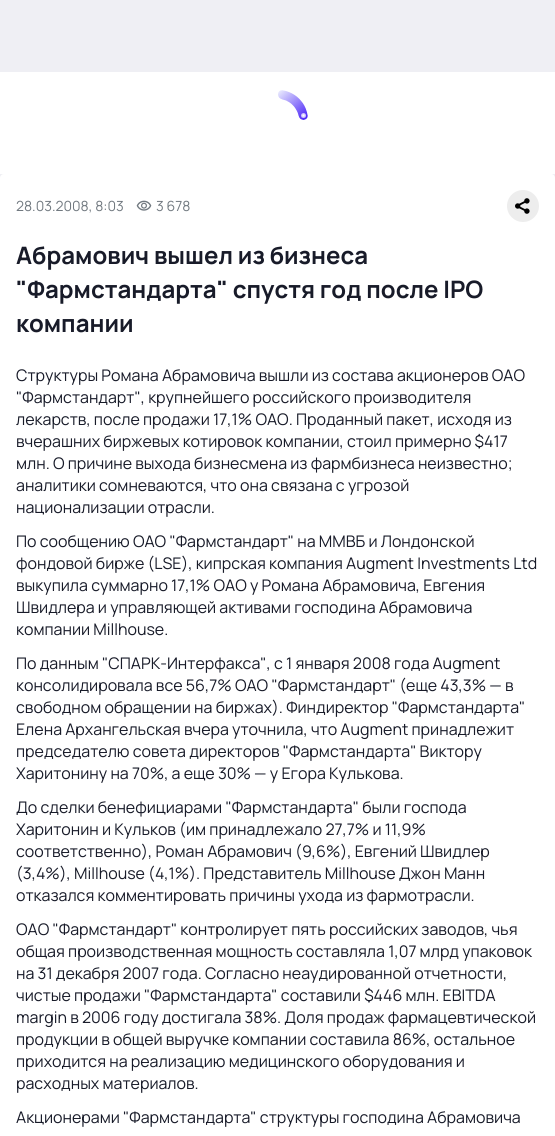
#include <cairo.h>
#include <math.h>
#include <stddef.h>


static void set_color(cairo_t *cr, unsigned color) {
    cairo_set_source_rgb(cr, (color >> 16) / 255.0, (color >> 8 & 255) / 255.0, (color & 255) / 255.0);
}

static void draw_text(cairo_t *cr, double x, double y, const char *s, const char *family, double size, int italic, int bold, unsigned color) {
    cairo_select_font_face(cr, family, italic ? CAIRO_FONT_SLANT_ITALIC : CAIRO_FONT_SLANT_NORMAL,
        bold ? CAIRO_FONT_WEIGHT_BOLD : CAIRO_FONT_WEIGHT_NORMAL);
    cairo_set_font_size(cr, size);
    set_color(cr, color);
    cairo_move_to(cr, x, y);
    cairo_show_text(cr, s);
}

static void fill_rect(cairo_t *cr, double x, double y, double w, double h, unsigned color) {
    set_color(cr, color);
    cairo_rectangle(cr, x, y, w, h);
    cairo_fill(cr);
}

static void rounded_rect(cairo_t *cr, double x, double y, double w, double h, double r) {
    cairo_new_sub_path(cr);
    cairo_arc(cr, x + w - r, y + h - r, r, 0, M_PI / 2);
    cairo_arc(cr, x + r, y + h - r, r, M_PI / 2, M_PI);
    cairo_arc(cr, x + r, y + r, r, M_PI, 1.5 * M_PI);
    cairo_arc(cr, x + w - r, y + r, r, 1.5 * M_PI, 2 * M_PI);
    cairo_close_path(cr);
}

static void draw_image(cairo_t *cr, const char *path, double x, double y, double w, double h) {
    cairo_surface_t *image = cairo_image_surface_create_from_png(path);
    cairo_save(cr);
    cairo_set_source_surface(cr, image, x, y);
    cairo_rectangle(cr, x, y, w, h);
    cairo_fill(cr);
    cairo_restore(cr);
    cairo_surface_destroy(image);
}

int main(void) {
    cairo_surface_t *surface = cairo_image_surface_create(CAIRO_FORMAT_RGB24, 555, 1136);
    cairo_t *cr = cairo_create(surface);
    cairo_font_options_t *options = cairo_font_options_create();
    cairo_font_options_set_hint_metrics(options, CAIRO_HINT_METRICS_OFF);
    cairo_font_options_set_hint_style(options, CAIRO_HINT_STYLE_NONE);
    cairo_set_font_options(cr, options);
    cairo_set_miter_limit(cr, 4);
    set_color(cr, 0xEFEFF4);
    cairo_paint(cr);
    fill_rect(cr, 0, 72, 555, 102, 0xFFFFFF);
    draw_image(cr, "assets/img1.png", 278, 90, 30, 30);
    rounded_rect(cr, 0, 174, 555, 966, 4);
    cairo_fill(cr);
    draw_text(cr, 16, 211, "28.03.2008, 8:03", "Manrope", 14, 0, 0, 0x717980);
    draw_image(cr, "assets/img2.png", 136, 200, 16, 11);
    draw_text(cr, 156, 211, "3 678", "Manrope", 14, 0, 0, 0x717980);
    set_color(cr, 0xEDEDED);
    cairo_new_path(cr);
    cairo_arc(cr, 523, 206, 16, 0, 2 * M_PI);
    cairo_fill(cr);
    draw_image(cr, "assets/img3.png", 515, 198, 15, 16);
    draw_text(cr, 16, 264, "Абрамович вышел из бизнеса", "Manrope", 24, 0, 1, 0x181B29);
    draw_text(cr, 16, 298, "\"Фармстандарта\" спустя год после IPO", "Manrope", 24, 0, 1, 0x181B29);
    draw_text(cr, 16, 332, "компании", "Manrope", 24, 0, 1, 0x181B29);
    draw_text(cr, 16, 381, "Структуры Романа Абрамовича вышли из состава акционеров ОАО", "Manrope", 16, 0, 0, 0x181B29);
    draw_text(cr, 16, 403, "\"Фармстандарт\", крупнейшего российского производителя", "Manrope", 16, 0, 0, 0x181B29);
    draw_text(cr, 16, 425, "лекарств, после продажи 17,1% ОАО. Проданный пакет, исходя из", "Manrope", 16, 0, 0, 0x181B29);
    draw_text(cr, 16, 447, "вчерашних биржевых котировок компании, стоил примерно $417", "Manrope", 16, 0, 0, 0x181B29);
    draw_text(cr, 16, 469, "млн. О причине выхода бизнесмена из фармбизнеса неизвестно;", "Manrope", 16, 0, 0, 0x181B29);
    draw_text(cr, 16, 491, "аналитики сомневаются, что она связана с угрозой", "Manrope", 16, 0, 0, 0x181B29);
    draw_text(cr, 16, 513, "национализации отрасли.", "Manrope", 16, 0, 0, 0x181B29);
    draw_text(cr, 16, 547, "По сообщению ОАО \"Фармстандарт\" на ММВБ и Лондонской", "Manrope", 16, 0, 0, 0x181B29);
    draw_text(cr, 16, 569, "фондовой бирже (LSE), кипрская компания Augment Investments Ltd", "Manrope", 16, 0, 0, 0x181B29);
    draw_text(cr, 16, 591, "выкупила суммарно 17,1% ОАО у Романа Абрамовича, Евгения", "Manrope", 16, 0, 0, 0x181B29);
    draw_text(cr, 16, 613, "Швидлера и управляющей активами господина Абрамовича", "Manrope", 16, 0, 0, 0x181B29);
    draw_text(cr, 16, 635, "компании Millhouse.", "Manrope", 16, 0, 0, 0x181B29);
    draw_text(cr, 16, 669, "По данным \"СПАРК-Интерфакса\", с 1 января 2008 года Augment", "Manrope", 16, 0, 0, 0x181B29);
    draw_text(cr, 16, 691, "консолидировала все 56,7% ОАО \"Фармстандарт\" (еще 43,3% — в", "Manrope", 16, 0, 0, 0x181B29);
    draw_text(cr, 16, 713, "свободном обращении на биржах). Финдиректор \"Фармстандарта\"", "Manrope", 16, 0, 0, 0x181B29);
    draw_text(cr, 16, 735, "Елена Архангельская вчера уточнила, что Augment принадлежит", "Manrope", 16, 0, 0, 0x181B29);
    draw_text(cr, 16, 757, "председателю совета директоров \"Фармстандарта\" Виктору", "Manrope", 16, 0, 0, 0x181B29);
    draw_text(cr, 16, 779, "Харитонину на 70%, а еще 30% — у Егора Кулькова.", "Manrope", 16, 0, 0, 0x181B29);
    draw_text(cr, 16, 813, "До сделки бенефициарами \"Фармстандарта\" были господа", "Manrope", 16, 0, 0, 0x181B29);
    draw_text(cr, 16, 835, "Харитонин и Кульков (им принадлежало 27,7% и 11,9%", "Manrope", 16, 0, 0, 0x181B29);
    draw_text(cr, 16, 857, "соответственно), Роман Абрамович (9,6%), Евгений Швидлер", "Manrope", 16, 0, 0, 0x181B29);
    draw_text(cr, 16, 879, "(3,4%), Millhouse (4,1%). Представитель Millhouse Джон Манн", "Manrope", 16, 0, 0, 0x181B29);
    draw_text(cr, 16, 901, "отказался комментировать причины ухода из фармотрасли.", "Manrope", 16, 0, 0, 0x181B29);
    draw_text(cr, 16, 935, "ОАО \"Фармстандарт\" контролирует пять российских заводов, чья", "Manrope", 16, 0, 0, 0x181B29);
    draw_text(cr, 16, 957, "общая производственная мощность составляла 1,07 млрд упаковок", "Manrope", 16, 0, 0, 0x181B29);
    draw_text(cr, 16, 979, "на 31 декабря 2007 года. Согласно неаудированной отчетности,", "Manrope", 16, 0, 0, 0x181B29);
    draw_text(cr, 16, 1001, "чистые продажи \"Фармстандарта\" составили $446 млн. EBITDA", "Manrope", 16, 0, 0, 0x181B29);
    draw_text(cr, 16, 1023, "margin в 2006 году достигала 38%. Доля продаж фармацевтической", "Manrope", 16, 0, 0, 0x181B29);
    draw_text(cr, 16, 1045, "продукции в общей выручке компании составила 86%, остальное", "Manrope", 16, 0, 0, 0x181B29);
    draw_text(cr, 16, 1067, "приходится на реализацию медицинского оборудования и", "Manrope", 16, 0, 0, 0x181B29);
    draw_text(cr, 16, 1089, "расходных материалов.", "Manrope", 16, 0, 0, 0x181B29);
    draw_text(cr, 16, 1123, "Акционерами \"Фармстандарта\" структуры господина Абрамовича", "Manrope", 16, 0, 0, 0x181B29);
    cairo_surface_write_to_png(surface, "output.png");
    cairo_font_options_destroy(options);
    cairo_destroy(cr);
    cairo_surface_destroy(surface);
    return 0;
}
